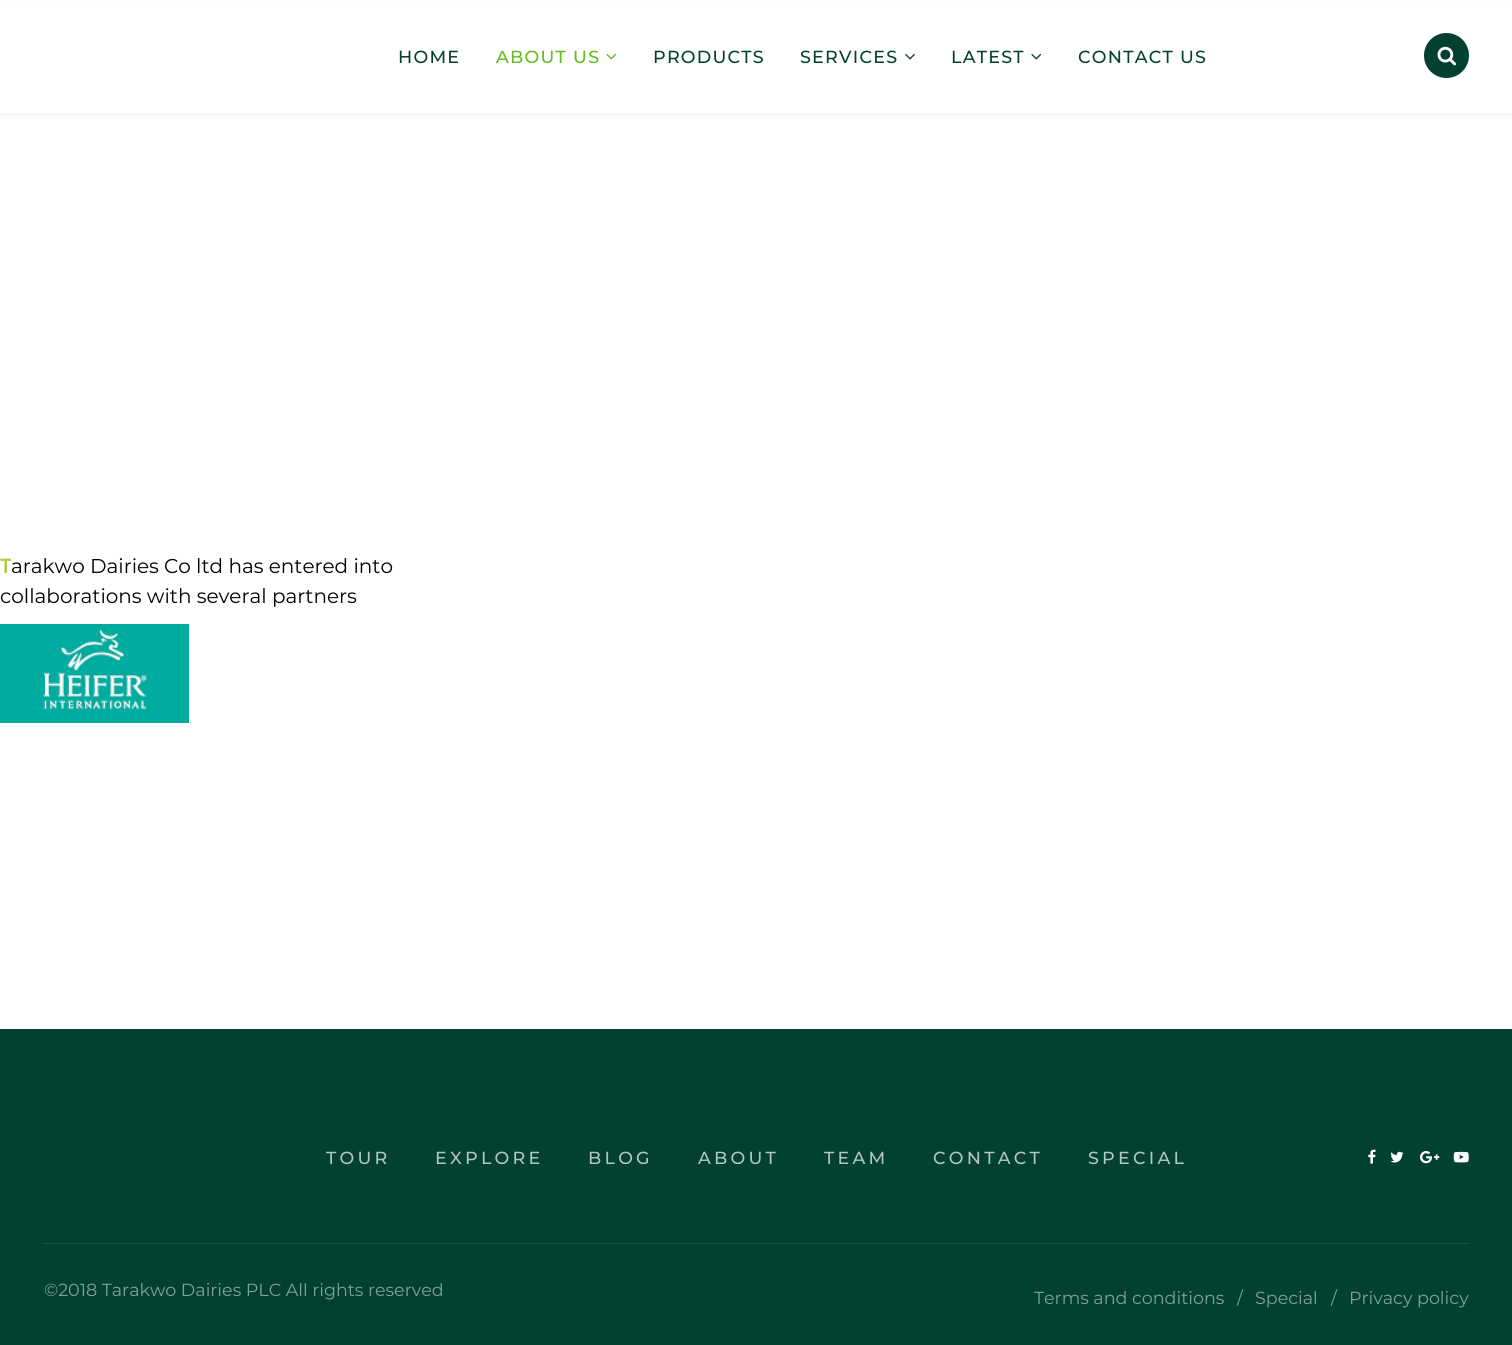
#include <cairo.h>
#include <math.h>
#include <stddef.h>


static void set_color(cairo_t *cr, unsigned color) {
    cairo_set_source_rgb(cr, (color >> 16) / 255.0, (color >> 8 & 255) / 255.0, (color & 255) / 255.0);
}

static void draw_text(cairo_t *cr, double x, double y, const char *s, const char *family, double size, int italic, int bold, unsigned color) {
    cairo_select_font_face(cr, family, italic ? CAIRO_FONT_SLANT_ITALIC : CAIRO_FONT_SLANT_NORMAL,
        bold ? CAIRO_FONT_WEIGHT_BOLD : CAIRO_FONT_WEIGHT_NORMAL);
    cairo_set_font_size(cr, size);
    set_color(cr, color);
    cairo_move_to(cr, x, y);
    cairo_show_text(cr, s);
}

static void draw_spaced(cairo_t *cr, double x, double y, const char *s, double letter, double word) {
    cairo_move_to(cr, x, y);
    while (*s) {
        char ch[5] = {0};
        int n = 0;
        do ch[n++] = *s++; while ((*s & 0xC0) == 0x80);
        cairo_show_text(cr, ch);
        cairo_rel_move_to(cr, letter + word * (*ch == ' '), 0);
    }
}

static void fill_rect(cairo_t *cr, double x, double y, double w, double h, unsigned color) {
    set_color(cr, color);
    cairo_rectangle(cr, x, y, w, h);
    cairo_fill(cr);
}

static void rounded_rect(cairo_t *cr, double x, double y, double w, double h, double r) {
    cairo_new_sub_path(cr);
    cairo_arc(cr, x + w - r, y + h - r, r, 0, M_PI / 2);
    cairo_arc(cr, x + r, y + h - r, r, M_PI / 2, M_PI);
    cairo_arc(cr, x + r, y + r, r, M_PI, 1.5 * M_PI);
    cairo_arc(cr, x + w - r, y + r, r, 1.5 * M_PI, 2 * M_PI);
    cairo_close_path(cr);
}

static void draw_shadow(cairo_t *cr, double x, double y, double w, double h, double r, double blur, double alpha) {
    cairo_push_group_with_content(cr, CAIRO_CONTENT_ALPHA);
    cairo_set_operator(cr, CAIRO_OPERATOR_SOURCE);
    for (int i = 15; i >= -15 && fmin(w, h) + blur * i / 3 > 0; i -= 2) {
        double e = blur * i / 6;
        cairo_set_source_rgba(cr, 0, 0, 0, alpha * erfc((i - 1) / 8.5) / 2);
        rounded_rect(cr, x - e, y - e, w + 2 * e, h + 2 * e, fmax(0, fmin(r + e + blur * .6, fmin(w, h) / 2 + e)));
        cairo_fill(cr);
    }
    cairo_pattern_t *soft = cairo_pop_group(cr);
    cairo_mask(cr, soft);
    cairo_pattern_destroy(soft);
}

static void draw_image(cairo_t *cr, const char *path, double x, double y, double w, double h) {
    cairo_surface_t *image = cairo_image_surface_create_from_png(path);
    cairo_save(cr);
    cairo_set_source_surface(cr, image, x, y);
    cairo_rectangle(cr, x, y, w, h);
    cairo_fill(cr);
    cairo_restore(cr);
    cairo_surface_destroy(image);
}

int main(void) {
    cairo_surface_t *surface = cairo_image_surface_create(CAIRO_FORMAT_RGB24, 1512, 1345);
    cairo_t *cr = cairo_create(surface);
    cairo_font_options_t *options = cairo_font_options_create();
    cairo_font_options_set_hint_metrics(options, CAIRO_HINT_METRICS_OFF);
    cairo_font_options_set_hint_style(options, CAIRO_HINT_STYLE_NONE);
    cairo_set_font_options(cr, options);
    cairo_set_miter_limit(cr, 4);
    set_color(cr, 0xFFFFFF);
    cairo_paint(cr);
    set_color(cr, 0x000000);
    draw_shadow(cr, 0, 4, 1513, 112, 0, 2, 0.05);
    fill_rect(cr, 0, 2, 1512, 111, 0xFFFFFF);
    cairo_select_font_face(cr, "Montserrat Medium", CAIRO_FONT_SLANT_NORMAL, CAIRO_FONT_WEIGHT_NORMAL);
    cairo_set_font_size(cr, 17.5);
    set_color(cr, 0x02402F);
    draw_spaced(cr, 398, 63, "HOME", 1.25, 0);
    set_color(cr, 0x61BC1F);
    draw_spaced(cr, 496, 63, "ABOUT US", 1.25, 0);
    draw_image(cr, "assets/img1.png", 606, 53, 11, 7);
    set_color(cr, 0x02402F);
    draw_spaced(cr, 653, 63, "PRODUCTS", 1.25, 0);
    draw_spaced(cr, 800, 63, "SERVICES", 1.25, 0);
    draw_image(cr, "assets/img2.png", 905, 53, 10, 7);
    draw_spaced(cr, 951, 63, "LATEST", 1.25, 0);
    draw_image(cr, "assets/img3.png", 1031, 53, 11, 7);
    draw_spaced(cr, 1078, 63, "CONTACT US", 1.25, 0);
    cairo_new_path(cr);
    cairo_arc(cr, 1446.5, 55.5, 22.5, 0, 2 * M_PI);
    cairo_fill(cr);
    draw_image(cr, "assets/img4.png", 1437, 46, 19, 20);
    draw_text(cr, 0, 573, "T", "Noto Sans SemiBold", 20, 0, 0, 0xA8CF44);
    draw_text(cr, 11, 573, "arakwo Dairies Co ltd has entered into", "Montserrat", 20, 0, 0, 0x000000);
    draw_text(cr, 0, 603, "collaborations with several partners", "Montserrat", 20, 0, 0, 0x000000);
    draw_image(cr, "assets/img5.png", 0, 624, 189, 99);
    fill_rect(cr, 0, 1029, 1512, 316, 0x02402F);
    fill_rect(cr, 44, 1243, 1425, 1, 0x1B5344);
    cairo_select_font_face(cr, "Montserrat Medium", CAIRO_FONT_SLANT_NORMAL, CAIRO_FONT_WEIGHT_NORMAL);
    cairo_set_font_size(cr, 17.5);
    set_color(cr, 0xB3C6C1);
    draw_spaced(cr, 326, 1164, "TOUR", 3.25, 0);
    draw_spaced(cr, 435, 1164, "EXPLORE", 3.25, 0);
    draw_spaced(cr, 588, 1164, "BLOG", 3.25, 0);
    draw_spaced(cr, 698, 1164, "ABOUT", 3.25, 0);
    draw_spaced(cr, 824, 1164, "TEAM", 3.25, 0);
    draw_spaced(cr, 933, 1164, "CONTACT", 3.25, 0);
    draw_spaced(cr, 1088, 1164, "SPECIAL", 3.25, 0);
    draw_image(cr, "assets/img6.png", 1368, 1149, 8, 15);
    draw_image(cr, "assets/img7.png", 1390, 1151, 14, 12);
    draw_image(cr, "assets/img8.png", 1420, 1151, 20, 13);
    draw_image(cr, "assets/img9.png", 1453, 1151, 16, 12);
    draw_text(cr, 44, 1296, "©2018 Tarakwo Dairies PLC All rights reserved", "Montserrat", 17.5, 0, 0, 0x81A097);
    draw_text(cr, 1034, 1304, "Terms and conditions", "Montserrat", 17.5, 0, 0, 0x81A097);
    draw_text(cr, 1237, 1304, "/", "Montserrat", 17.5, 0, 0, 0x81A097);
    draw_text(cr, 1255, 1304, "Special", "Montserrat", 17.5, 0, 0, 0x81A097);
    draw_text(cr, 1331, 1304, "/", "Montserrat", 17.5, 0, 0, 0x81A097);
    draw_text(cr, 1349, 1304, "Privacy policy", "Montserrat", 17.5, 0, 0, 0x81A097);
    cairo_surface_write_to_png(surface, "output.png");
    cairo_font_options_destroy(options);
    cairo_destroy(cr);
    cairo_surface_destroy(surface);
    return 0;
}
